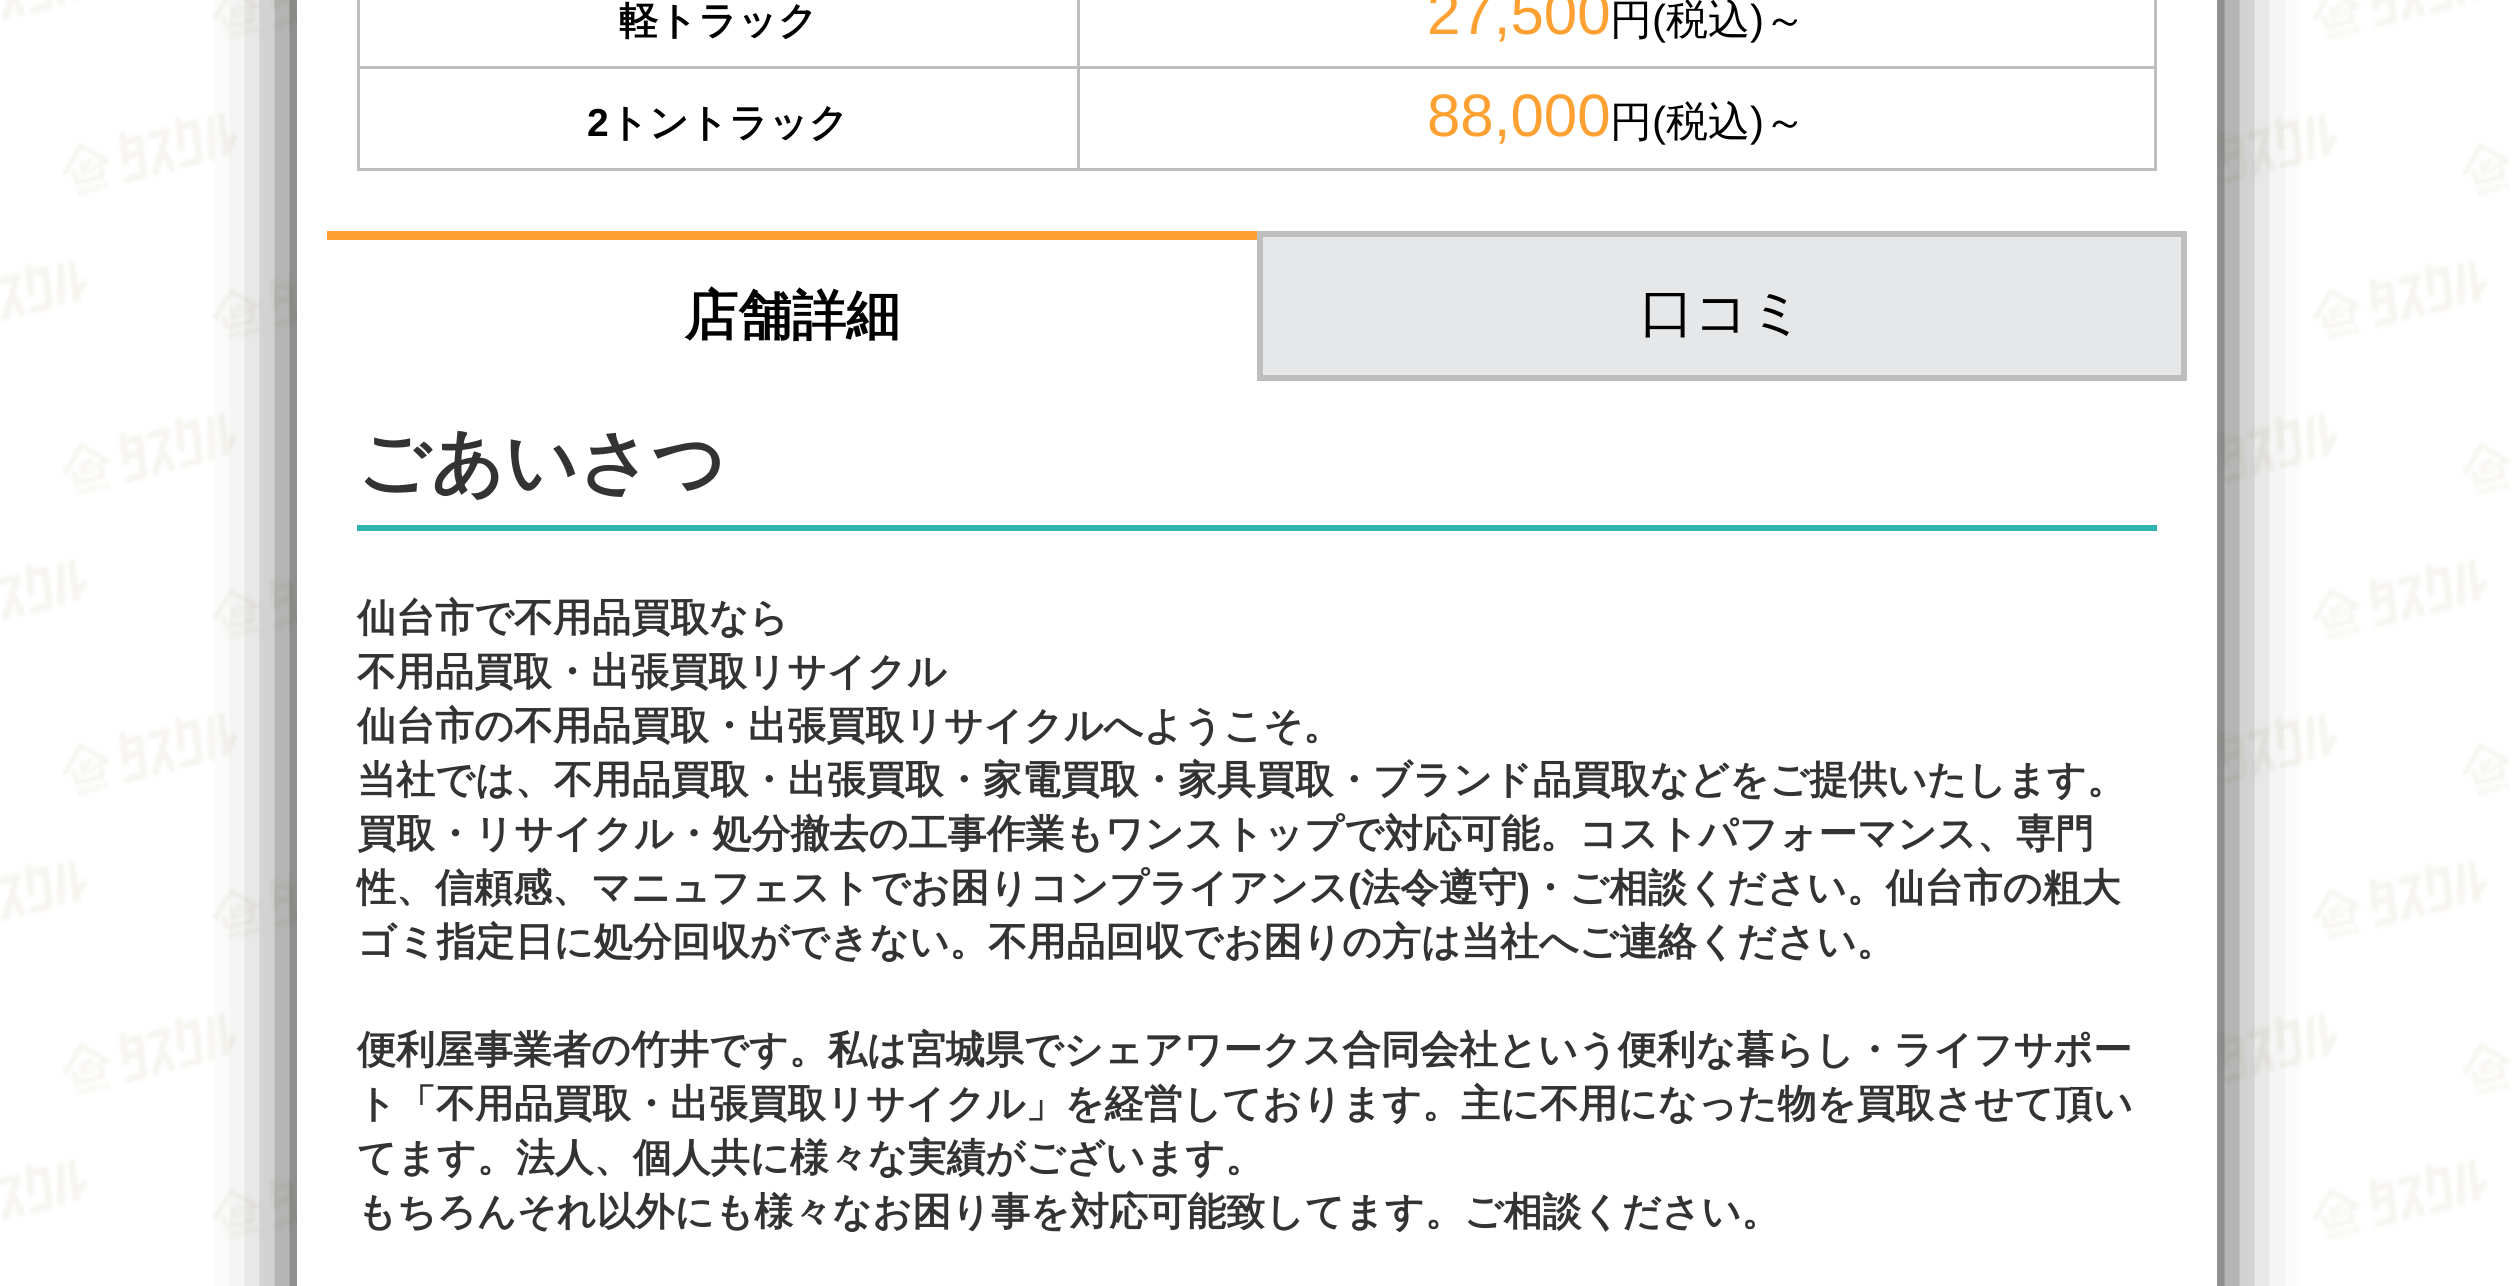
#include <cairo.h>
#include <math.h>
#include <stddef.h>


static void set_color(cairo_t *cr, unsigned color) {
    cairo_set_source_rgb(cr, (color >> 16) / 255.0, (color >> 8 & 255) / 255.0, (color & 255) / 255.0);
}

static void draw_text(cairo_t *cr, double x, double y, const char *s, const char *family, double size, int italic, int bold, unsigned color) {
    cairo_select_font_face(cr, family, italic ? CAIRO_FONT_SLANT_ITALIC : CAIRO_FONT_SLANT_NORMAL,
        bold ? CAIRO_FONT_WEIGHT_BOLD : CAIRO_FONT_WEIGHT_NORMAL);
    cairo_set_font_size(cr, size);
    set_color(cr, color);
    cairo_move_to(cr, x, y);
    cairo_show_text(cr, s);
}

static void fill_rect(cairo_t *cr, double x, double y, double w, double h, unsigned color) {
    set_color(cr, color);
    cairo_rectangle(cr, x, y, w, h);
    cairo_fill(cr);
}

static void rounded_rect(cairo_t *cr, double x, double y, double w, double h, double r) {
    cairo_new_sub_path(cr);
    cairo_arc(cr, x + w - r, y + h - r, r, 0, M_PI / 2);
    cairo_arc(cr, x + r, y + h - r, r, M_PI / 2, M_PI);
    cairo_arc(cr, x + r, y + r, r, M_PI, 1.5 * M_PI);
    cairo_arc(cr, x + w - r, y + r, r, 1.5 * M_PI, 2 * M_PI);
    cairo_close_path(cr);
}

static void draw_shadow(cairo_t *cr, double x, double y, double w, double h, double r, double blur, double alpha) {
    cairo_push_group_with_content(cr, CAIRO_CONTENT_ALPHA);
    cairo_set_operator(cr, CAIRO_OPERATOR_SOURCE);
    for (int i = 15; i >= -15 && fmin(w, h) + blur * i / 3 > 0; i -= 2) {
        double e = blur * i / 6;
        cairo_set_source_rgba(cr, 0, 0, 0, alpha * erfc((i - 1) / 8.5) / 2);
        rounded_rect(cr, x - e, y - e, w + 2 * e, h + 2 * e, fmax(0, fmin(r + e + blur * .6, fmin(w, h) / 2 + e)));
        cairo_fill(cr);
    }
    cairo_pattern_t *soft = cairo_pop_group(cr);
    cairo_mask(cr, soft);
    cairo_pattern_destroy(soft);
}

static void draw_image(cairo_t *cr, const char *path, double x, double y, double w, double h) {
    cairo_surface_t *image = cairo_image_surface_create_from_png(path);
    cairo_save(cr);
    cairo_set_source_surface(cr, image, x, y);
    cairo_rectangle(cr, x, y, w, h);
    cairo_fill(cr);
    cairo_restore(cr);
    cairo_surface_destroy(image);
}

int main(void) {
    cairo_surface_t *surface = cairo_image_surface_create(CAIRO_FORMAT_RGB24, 2513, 1286);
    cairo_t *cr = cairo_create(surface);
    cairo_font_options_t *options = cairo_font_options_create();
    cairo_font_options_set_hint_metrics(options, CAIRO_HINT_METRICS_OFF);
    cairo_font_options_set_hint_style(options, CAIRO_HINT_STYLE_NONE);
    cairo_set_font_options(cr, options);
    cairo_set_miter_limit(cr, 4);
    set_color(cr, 0xFFFFFF);
    cairo_paint(cr);
    draw_image(cr, "assets/img1.png", 0, 0, 2511, 1240);
    set_color(cr, 0x000000);
    draw_shadow(cr, 327, -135, 1860, 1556, 0, 45, 1);
    draw_shadow(cr, 327, -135, 1860, 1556, 0, 45, 1);
    fill_rect(cr, 297, 0, 1920, 1286, 0xFFFFFF);
    draw_text(cr, 619, 34, "軽トラック", "WenQuanYi Zen Hei", 39, 0, 1, 0x000000);
    fill_rect(cr, 1077, 66, 1080, 3, 0xBEBEBE);
    fill_rect(cr, 2154, 0, 3, 171, 0xBEBEBE);
    fill_rect(cr, 1077, 168, 1080, 3, 0xBEBEBE);
    fill_rect(cr, 1077, 66, 3, 105, 0xBEBEBE);
    fill_rect(cr, 357, 66, 723, 3, 0xBEBEBE);
    fill_rect(cr, 1077, 0, 3, 69, 0xBEBEBE);
    draw_text(cr, 1427, 34, "27,500", "Liberation Sans", 60, 0, 0, 0xFFA132);
    draw_text(cr, 1610, 34, "円", "WenQuanYi Zen Hei Medium", 42, 0, 0, 0x000000);
    draw_text(cr, 1652, 34, "(", "Liberation Sans", 42, 0, 0, 0x000000);
    draw_text(cr, 1666, 34, "税込", "WenQuanYi Zen Hei Medium", 42, 0, 0, 0x000000);
    draw_text(cr, 1750, 34, ")", "Liberation Sans", 42, 0, 0, 0x000000);
    draw_text(cr, 1764, 34, "～", "WenQuanYi Zen Hei Medium", 42, 0, 0, 0x000000);
    fill_rect(cr, 357, 168, 723, 3, 0xBEBEBE);
    fill_rect(cr, 357, 0, 3, 171, 0xBEBEBE);
    draw_text(cr, 587, 136, "2", "Liberation Sans", 39, 0, 1, 0x000000);
    draw_text(cr, 609, 136, "トントラック", "WenQuanYi Zen Hei", 39, 0, 1, 0x000000);
    draw_text(cr, 1427, 136, "88,000", "Liberation Sans", 60, 0, 0, 0xFFA132);
    draw_text(cr, 1610, 136, "円", "WenQuanYi Zen Hei Medium", 42, 0, 0, 0x000000);
    draw_text(cr, 1652, 136, "(", "Liberation Sans", 42, 0, 0, 0x000000);
    draw_text(cr, 1666, 136, "税込", "WenQuanYi Zen Hei Medium", 42, 0, 0, 0x000000);
    draw_text(cr, 1750, 136, ")", "Liberation Sans", 42, 0, 0, 0x000000);
    draw_text(cr, 1764, 136, "～", "WenQuanYi Zen Hei Medium", 42, 0, 0, 0x000000);
    fill_rect(cr, 327, 231, 930, 9, 0xFFA132);
    draw_text(cr, 684, 334, "店舗詳細", "WenQuanYi Zen Hei", 54, 0, 1, 0x000000);
    set_color(cr, 0xE6E7E8);
    cairo_rectangle(cr, 1260, 234, 924, 144);
    cairo_fill_preserve(cr);
    set_color(cr, 0xBEBEBE);
    cairo_set_line_width(cr, 6);
    cairo_stroke(cr);
    draw_text(cr, 1640, 331, "口コミ", "WenQuanYi Zen Hei Medium", 54, 0, 0, 0x000000);
    fill_rect(cr, 357, 525, 1800, 6, 0x2DB4AF);
    draw_text(cr, 357, 487, "ごあいさつ", "WenQuanYi Zen Hei", 72, 0, 1, 0x333333);
    draw_text(cr, 357, 631, "仙台市で不用品買取なら", "WenQuanYi Zen Hei", 39, 0, 1, 0x333333);
    draw_text(cr, 357, 685, "不用品買取・出張買取リサイクル", "WenQuanYi Zen Hei", 39, 0, 1, 0x333333);
    draw_text(cr, 357, 739, "仙台市の不用品買取・出張買取リサイクルへようこそ。", "WenQuanYi Zen Hei", 39, 0, 1, 0x333333);
    draw_text(cr, 357, 793, "当社では、不用品買取・出張買取・家電買取・家具買取・ブランド品買取などをご提供いたします。", "WenQuanYi Zen Hei", 39, 0, 1, 0x333333);
    draw_text(cr, 357, 847, "買取・リサイクル・処分撤去の工事作業もワンストップで対応可能。コストパフォーマンス、専門", "WenQuanYi Zen Hei", 39, 0, 1, 0x333333);
    draw_text(cr, 357, 901, "性、信頼感、マニュフェストでお困りコンプライアンス", "WenQuanYi Zen Hei", 39, 0, 1, 0x333333);
    draw_text(cr, 1348, 901, "(", "Liberation Sans", 39, 0, 1, 0x333333);
    draw_text(cr, 1361, 901, "法令遵守", "WenQuanYi Zen Hei", 39, 0, 1, 0x333333);
    draw_text(cr, 1517, 901, ")", "Liberation Sans", 39, 0, 1, 0x333333);
    draw_text(cr, 1530, 901, "・ご相談ください。仙台市の粗大", "WenQuanYi Zen Hei", 39, 0, 1, 0x333333);
    draw_text(cr, 357, 955, "ゴミ指定日に処分回収ができない。不用品回収でお困りの方は当社へご連絡ください。", "WenQuanYi Zen Hei", 39, 0, 1, 0x333333);
    draw_text(cr, 357, 1063, "便利屋事業者の竹井です。私は宮城県でシェアワークス合同会社という便利な暮らし・ライフサポー", "WenQuanYi Zen Hei", 39, 0, 1, 0x333333);
    draw_text(cr, 357, 1117, "ト「不用品買取・出張買取リサイクル」を経営しております。主に不用になった物を買取させて頂い", "WenQuanYi Zen Hei", 39, 0, 1, 0x333333);
    draw_text(cr, 357, 1171, "てます。法人、個人共に様々な実績がございます。", "WenQuanYi Zen Hei", 39, 0, 1, 0x333333);
    draw_text(cr, 357, 1225, "もちろんそれ以外にも様々なお困り事を対応可能致してます。ご相談ください。", "WenQuanYi Zen Hei", 39, 0, 1, 0x333333);
    cairo_surface_write_to_png(surface, "output.png");
    cairo_font_options_destroy(options);
    cairo_destroy(cr);
    cairo_surface_destroy(surface);
    return 0;
}
